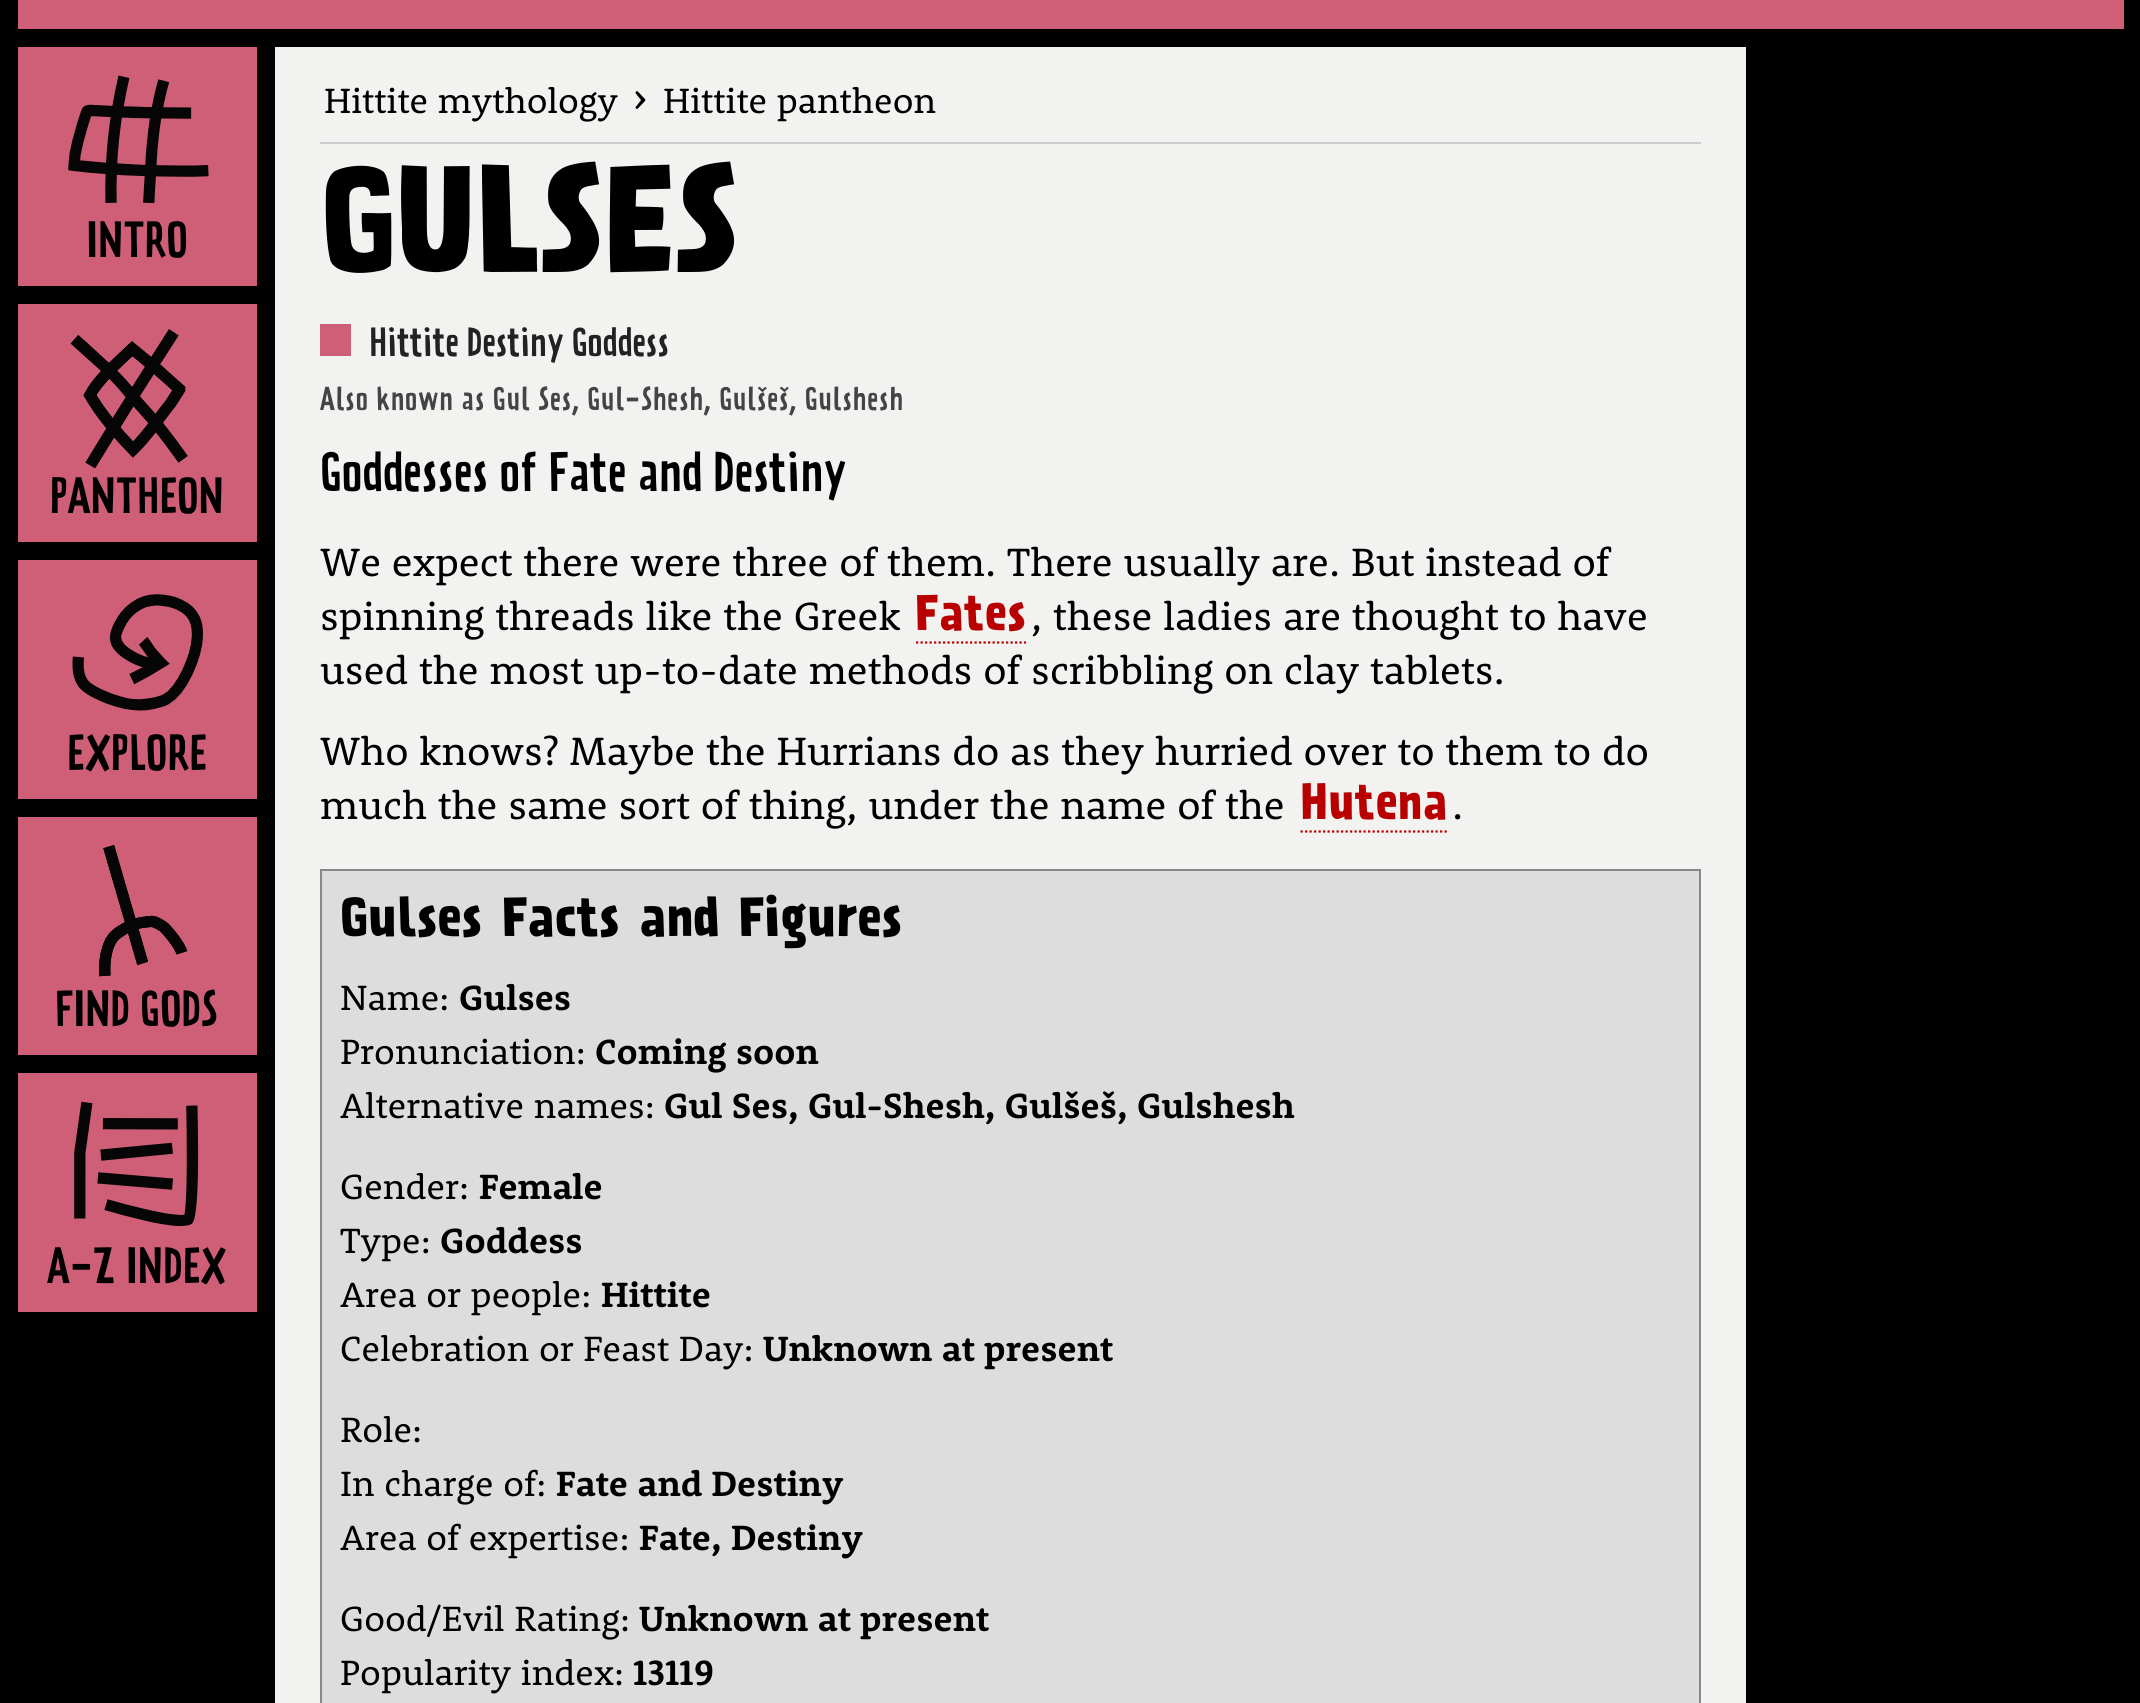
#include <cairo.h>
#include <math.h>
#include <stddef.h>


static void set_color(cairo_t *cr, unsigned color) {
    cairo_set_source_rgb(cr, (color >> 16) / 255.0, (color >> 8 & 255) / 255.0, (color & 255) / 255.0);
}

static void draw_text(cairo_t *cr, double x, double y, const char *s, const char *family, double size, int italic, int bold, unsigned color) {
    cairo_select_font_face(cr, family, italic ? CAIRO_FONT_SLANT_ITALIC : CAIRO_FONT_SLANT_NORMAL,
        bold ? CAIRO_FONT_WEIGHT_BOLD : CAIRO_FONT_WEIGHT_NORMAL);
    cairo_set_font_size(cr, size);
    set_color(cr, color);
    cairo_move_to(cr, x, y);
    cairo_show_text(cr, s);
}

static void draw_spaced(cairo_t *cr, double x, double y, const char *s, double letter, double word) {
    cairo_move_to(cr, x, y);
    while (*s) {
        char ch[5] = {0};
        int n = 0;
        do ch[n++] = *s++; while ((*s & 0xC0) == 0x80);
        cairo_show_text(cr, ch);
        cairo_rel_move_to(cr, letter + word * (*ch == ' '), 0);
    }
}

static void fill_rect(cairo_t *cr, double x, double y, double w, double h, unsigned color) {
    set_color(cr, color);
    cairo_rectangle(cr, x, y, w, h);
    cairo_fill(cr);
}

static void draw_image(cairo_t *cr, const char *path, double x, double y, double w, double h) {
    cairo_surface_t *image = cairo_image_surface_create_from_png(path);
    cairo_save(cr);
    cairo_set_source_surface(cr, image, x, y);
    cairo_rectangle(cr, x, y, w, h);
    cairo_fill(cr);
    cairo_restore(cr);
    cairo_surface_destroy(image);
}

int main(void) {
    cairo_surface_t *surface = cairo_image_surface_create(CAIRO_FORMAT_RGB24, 2140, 1703);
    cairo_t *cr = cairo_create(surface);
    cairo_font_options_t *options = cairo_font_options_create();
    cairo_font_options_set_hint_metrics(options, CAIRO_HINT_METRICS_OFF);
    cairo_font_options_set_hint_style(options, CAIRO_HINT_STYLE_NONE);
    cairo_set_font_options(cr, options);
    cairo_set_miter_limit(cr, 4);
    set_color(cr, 0x000000);
    cairo_paint(cr);
    fill_rect(cr, 18, 0, 2106, 29, 0xCF5E77);
    fill_rect(cr, 18, 47, 239, 239, 0xCF5E77);
    draw_image(cr, "assets/img1.png", 68, 75, 141, 128);
    draw_text(cr, 86, 257, "INTRO", "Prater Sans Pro", 45, 0, 0, 0x000000);
    fill_rect(cr, 18, 304, 239, 238, 0xCF5E77);
    draw_image(cr, "assets/img2.png", 70, 329, 118, 140);
    draw_text(cr, 50, 513, "PANTHEON", "Prater Sans Pro", 45, 0, 0, 0x000000);
    fill_rect(cr, 18, 560, 239, 239, 0xCF5E77);
    draw_image(cr, "assets/img3.png", 72, 594, 131, 117);
    draw_text(cr, 67, 770, "EXPLORE", "Prater Sans Pro", 45, 0, 0, 0x000000);
    fill_rect(cr, 18, 817, 239, 238, 0xCF5E77);
    draw_image(cr, "assets/img4.png", 99, 845, 89, 132);
    set_color(cr, 0x000000);
    draw_spaced(cr, 55, 1026, "FIND GODS", 0, -1);
    fill_rect(cr, 18, 1073, 239, 239, 0xCF5E77);
    draw_image(cr, "assets/img5.png", 74, 1101, 125, 125);
    draw_text(cr, 47, 1283, "A-Z INDEX", "Prater Sans Pro", 45, 0, 0, 0x000000);
    fill_rect(cr, 275, 47, 1471, 1656, 0xF2F2F0);
    fill_rect(cr, 320, 142, 1381, 2, 0xCCCCCC);
    draw_text(cr, 324, 113, "Hittite mythology", "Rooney", 36, 0, 0, 0x000000);
    draw_text(cr, 633, 110, "›", "Rooney", 40.5, 0, 0, 0x000000);
    draw_text(cr, 663, 113, "Hittite pantheon", "Rooney", 36, 0, 0, 0x000000);
    draw_text(cr, 320, 272, "GULSES", "Prater Sans Pro", 135, 0, 1, 0x000000);
    fill_rect(cr, 320, 324, 31, 32, 0xCF5E77);
    cairo_select_font_face(cr, "Prater Sans Pro", CAIRO_FONT_SLANT_NORMAL, CAIRO_FONT_WEIGHT_NORMAL);
    cairo_set_font_size(cr, 36);
    set_color(cr, 0x222222);
    draw_spaced(cr, 369, 356, "Hittite Destiny Goddess", 0, -1);
    cairo_set_font_size(cr, 29.25);
    set_color(cr, 0x444444);
    draw_spaced(cr, 320, 410, "Also known as Gul Ses, Gul-Shesh, Gulšeš, Gulshesh", 0.9, -0.5);
    cairo_set_font_size(cr, 49.5);
    set_color(cr, 0x000000);
    draw_spaced(cr, 320, 491, "Goddesses of Fate and Destiny", 0, -1);
    draw_text(cr, 320, 576, "We expect there were three of them. There usually are. But instead of", "Rooney", 40.5, 0, 0, 0x000000);
    draw_text(cr, 320, 630, "spinning threads like the Greek", "Rooney", 40.5, 0, 0, 0x000000);
    cairo_new_path(cr);
    cairo_move_to(cr, 916, 642.5);
    cairo_line_to(cr, 1026, 642.5);
    set_color(cr, 0xB90000);
    cairo_set_line_width(cr, 2.2);
    cairo_set_dash(cr, (double[]){2.25, 2.25}, 2, 0);
    cairo_stroke(cr);
    cairo_select_font_face(cr, "Prater Sans Pro", CAIRO_FONT_SLANT_NORMAL, CAIRO_FONT_WEIGHT_BOLD);
    cairo_set_font_size(cr, 45);
    draw_spaced(cr, 915, 630, "Fates", 0.5, 0);
    draw_text(cr, 1031, 630, ", these ladies are thought to have", "Rooney", 40.5, 0, 0, 0x000000);
    draw_text(cr, 320, 684, "used the most up-to-date methods of scribbling on clay tablets.", "Rooney", 40.5, 0, 0, 0x000000);
    draw_text(cr, 320, 765, "Who knows? Maybe the Hurrians do as they hurried over to them to do", "Rooney", 40.5, 0, 0, 0x000000);
    draw_text(cr, 320, 819, "much the same sort of thing, under the name of the", "Rooney", 40.5, 0, 0, 0x000000);
    cairo_new_path(cr);
    cairo_move_to(cr, 1300.5, 831.5);
    cairo_line_to(cr, 1447, 831.5);
    set_color(cr, 0xB90000);
    cairo_stroke(cr);
    cairo_select_font_face(cr, "Prater Sans Pro", CAIRO_FONT_SLANT_NORMAL, CAIRO_FONT_WEIGHT_BOLD);
    cairo_set_font_size(cr, 45);
    draw_spaced(cr, 1300, 819, "Hutena", 0.5, 0);
    draw_text(cr, 1452, 819, ".", "Rooney", 40.5, 0, 0, 0x000000);
    set_color(cr, 0xDDDDDD);
    cairo_rectangle(cr, 321, 870, 1379, 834);
    cairo_fill_preserve(cr);
    set_color(cr, 0x888888);
    cairo_set_line_width(cr, 2);
    cairo_set_dash(cr, NULL, 0, 0);
    cairo_stroke(cr);
    cairo_select_font_face(cr, "Prater Sans Pro", CAIRO_FONT_SLANT_NORMAL, CAIRO_FONT_WEIGHT_BOLD);
    cairo_set_font_size(cr, 49.5);
    set_color(cr, 0x000000);
    draw_spaced(cr, 340, 936, "Gulses Facts and Figures", 0, 1.5);
    draw_text(cr, 340, 1010, "Name:", "Rooney", 36, 0, 0, 0x000000);
    draw_text(cr, 459, 1010, "Gulses", "Rooney", 36, 0, 1, 0x000000);
    draw_text(cr, 340, 1064, "Pronunciation:", "Rooney", 36, 0, 0, 0x000000);
    draw_text(cr, 595, 1064, "Coming soon", "Rooney", 36, 0, 1, 0x000000);
    draw_text(cr, 340, 1118, "Alternative names:", "Rooney", 36, 0, 0, 0x000000);
    draw_text(cr, 664, 1118, "Gul Ses, Gul-Shesh, Gulšeš, Gulshesh", "Rooney", 36, 0, 1, 0x000000);
    draw_text(cr, 340, 1199, "Gender:", "Rooney", 36, 0, 0, 0x000000);
    draw_text(cr, 479, 1199, "Female", "Rooney", 36, 0, 1, 0x000000);
    draw_text(cr, 340, 1253, "Type:", "Rooney", 36, 0, 0, 0x000000);
    draw_text(cr, 440, 1253, "Goddess", "Rooney", 36, 0, 1, 0x000000);
    draw_text(cr, 340, 1307, "Area or people:", "Rooney", 36, 0, 0, 0x000000);
    draw_text(cr, 601, 1307, "Hittite", "Rooney", 36, 0, 1, 0x000000);
    draw_text(cr, 340, 1361, "Celebration or Feast Day:", "Rooney", 36, 0, 0, 0x000000);
    draw_text(cr, 763, 1361, "Unknown at present", "Rooney", 36, 0, 1, 0x000000);
    draw_text(cr, 340, 1442, "Role:", "Rooney", 36, 0, 0, 0x000000);
    draw_text(cr, 340, 1496, "In charge of:", "Rooney", 36, 0, 0, 0x000000);
    draw_text(cr, 556, 1496, "Fate and Destiny", "Rooney", 36, 0, 1, 0x000000);
    draw_text(cr, 340, 1550, "Area of expertise:", "Rooney", 36, 0, 0, 0x000000);
    draw_text(cr, 639, 1550, "Fate, Destiny", "Rooney", 36, 0, 1, 0x000000);
    draw_text(cr, 340, 1631, "Good/Evil Rating:", "Rooney", 36, 0, 0, 0x000000);
    draw_text(cr, 639, 1631, "Unknown at present", "Rooney", 36, 0, 1, 0x000000);
    draw_text(cr, 340, 1685, "Popularity index:", "Rooney", 36, 0, 0, 0x000000);
    draw_text(cr, 633, 1685, "13119", "Rooney", 36, 0, 1, 0x000000);
    cairo_surface_write_to_png(surface, "output.png");
    cairo_font_options_destroy(options);
    cairo_destroy(cr);
    cairo_surface_destroy(surface);
    return 0;
}
